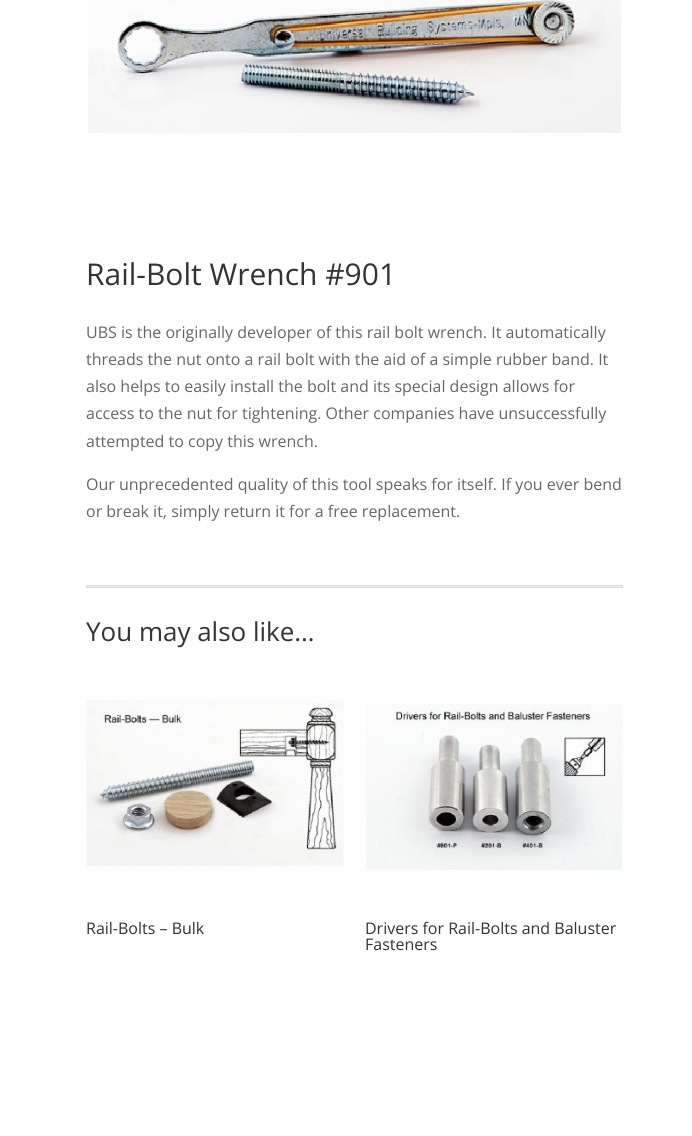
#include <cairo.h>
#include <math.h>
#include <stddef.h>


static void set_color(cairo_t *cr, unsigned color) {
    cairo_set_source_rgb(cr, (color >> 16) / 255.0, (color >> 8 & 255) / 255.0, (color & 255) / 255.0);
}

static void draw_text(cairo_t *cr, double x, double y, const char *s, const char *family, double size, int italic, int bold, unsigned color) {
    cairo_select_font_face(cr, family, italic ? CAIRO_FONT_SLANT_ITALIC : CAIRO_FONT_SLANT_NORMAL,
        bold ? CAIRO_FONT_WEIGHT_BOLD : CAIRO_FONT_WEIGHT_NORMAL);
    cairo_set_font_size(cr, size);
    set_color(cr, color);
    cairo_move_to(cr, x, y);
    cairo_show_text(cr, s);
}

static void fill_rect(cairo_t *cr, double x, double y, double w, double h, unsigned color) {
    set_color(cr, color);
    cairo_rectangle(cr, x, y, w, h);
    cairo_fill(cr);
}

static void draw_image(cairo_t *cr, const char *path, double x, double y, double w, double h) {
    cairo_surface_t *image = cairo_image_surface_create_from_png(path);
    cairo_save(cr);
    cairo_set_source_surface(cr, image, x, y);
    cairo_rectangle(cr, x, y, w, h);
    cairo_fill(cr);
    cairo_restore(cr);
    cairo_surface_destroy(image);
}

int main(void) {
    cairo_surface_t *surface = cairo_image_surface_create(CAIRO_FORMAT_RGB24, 692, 1136);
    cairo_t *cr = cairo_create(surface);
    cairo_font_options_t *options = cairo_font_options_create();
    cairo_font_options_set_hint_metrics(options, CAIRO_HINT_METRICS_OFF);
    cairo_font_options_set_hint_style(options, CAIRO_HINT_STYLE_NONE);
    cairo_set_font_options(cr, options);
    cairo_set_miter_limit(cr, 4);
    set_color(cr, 0xFFFFFF);
    cairo_paint(cr);
    draw_image(cr, "assets/img1.png", 88, 0, 533, 133);
    draw_text(cr, 86, 285, "Rail-Bolt Wrench #901", "Open Sans", 30, 0, 0, 0x333333);
    draw_text(cr, 86, 338, "UBS is the originally developer of this rail bolt wrench. It automatically", "Open Sans", 16, 0, 0, 0x666666);
    draw_text(cr, 86, 365, "threads the nut onto a rail bolt with the aid of a simple rubber band. It", "Open Sans", 16, 0, 0, 0x666666);
    draw_text(cr, 86, 392, "also helps to easily install the bolt and its special design allows for", "Open Sans", 16, 0, 0, 0x666666);
    draw_text(cr, 86, 419, "access to the nut for tightening. Other companies have unsuccessfully", "Open Sans", 16, 0, 0, 0x666666);
    draw_text(cr, 86, 447, "attempted to copy this wrench.", "Open Sans", 16, 0, 0, 0x666666);
    draw_text(cr, 86, 490, "Our unprecedented quality of this tool speaks for itself. If you ever bend", "Open Sans", 16, 0, 0, 0x666666);
    draw_text(cr, 86, 517, "or break it, simply return it for a free replacement.", "Open Sans", 16, 0, 0, 0x666666);
    cairo_rectangle(cr, 86.5, 585.5, 536, 2);
    set_color(cr, 0xD9D9D9);
    cairo_set_line_width(cr, 1);
    cairo_stroke(cr);
    fill_rect(cr, 87, 586, 535, 1, 0xF4F4F4);
    draw_text(cr, 86, 641, "You may also like…", "Open Sans", 26, 0, 0, 0x333333);
    draw_image(cr, "assets/img2.png", 86, 700, 258, 167);
    draw_text(cr, 86, 934, "Rail-Bolts – Bulk", "Open Sans", 16, 0, 0, 0x333333);
    draw_image(cr, "assets/img3.png", 365, 704, 258, 169);
    draw_text(cr, 365, 934, "Drivers for Rail-Bolts and Baluster", "Open Sans", 16, 0, 0, 0x333333);
    draw_text(cr, 365, 950, "Fasteners", "Open Sans", 16, 0, 0, 0x333333);
    cairo_surface_write_to_png(surface, "output.png");
    cairo_font_options_destroy(options);
    cairo_destroy(cr);
    cairo_surface_destroy(surface);
    return 0;
}
